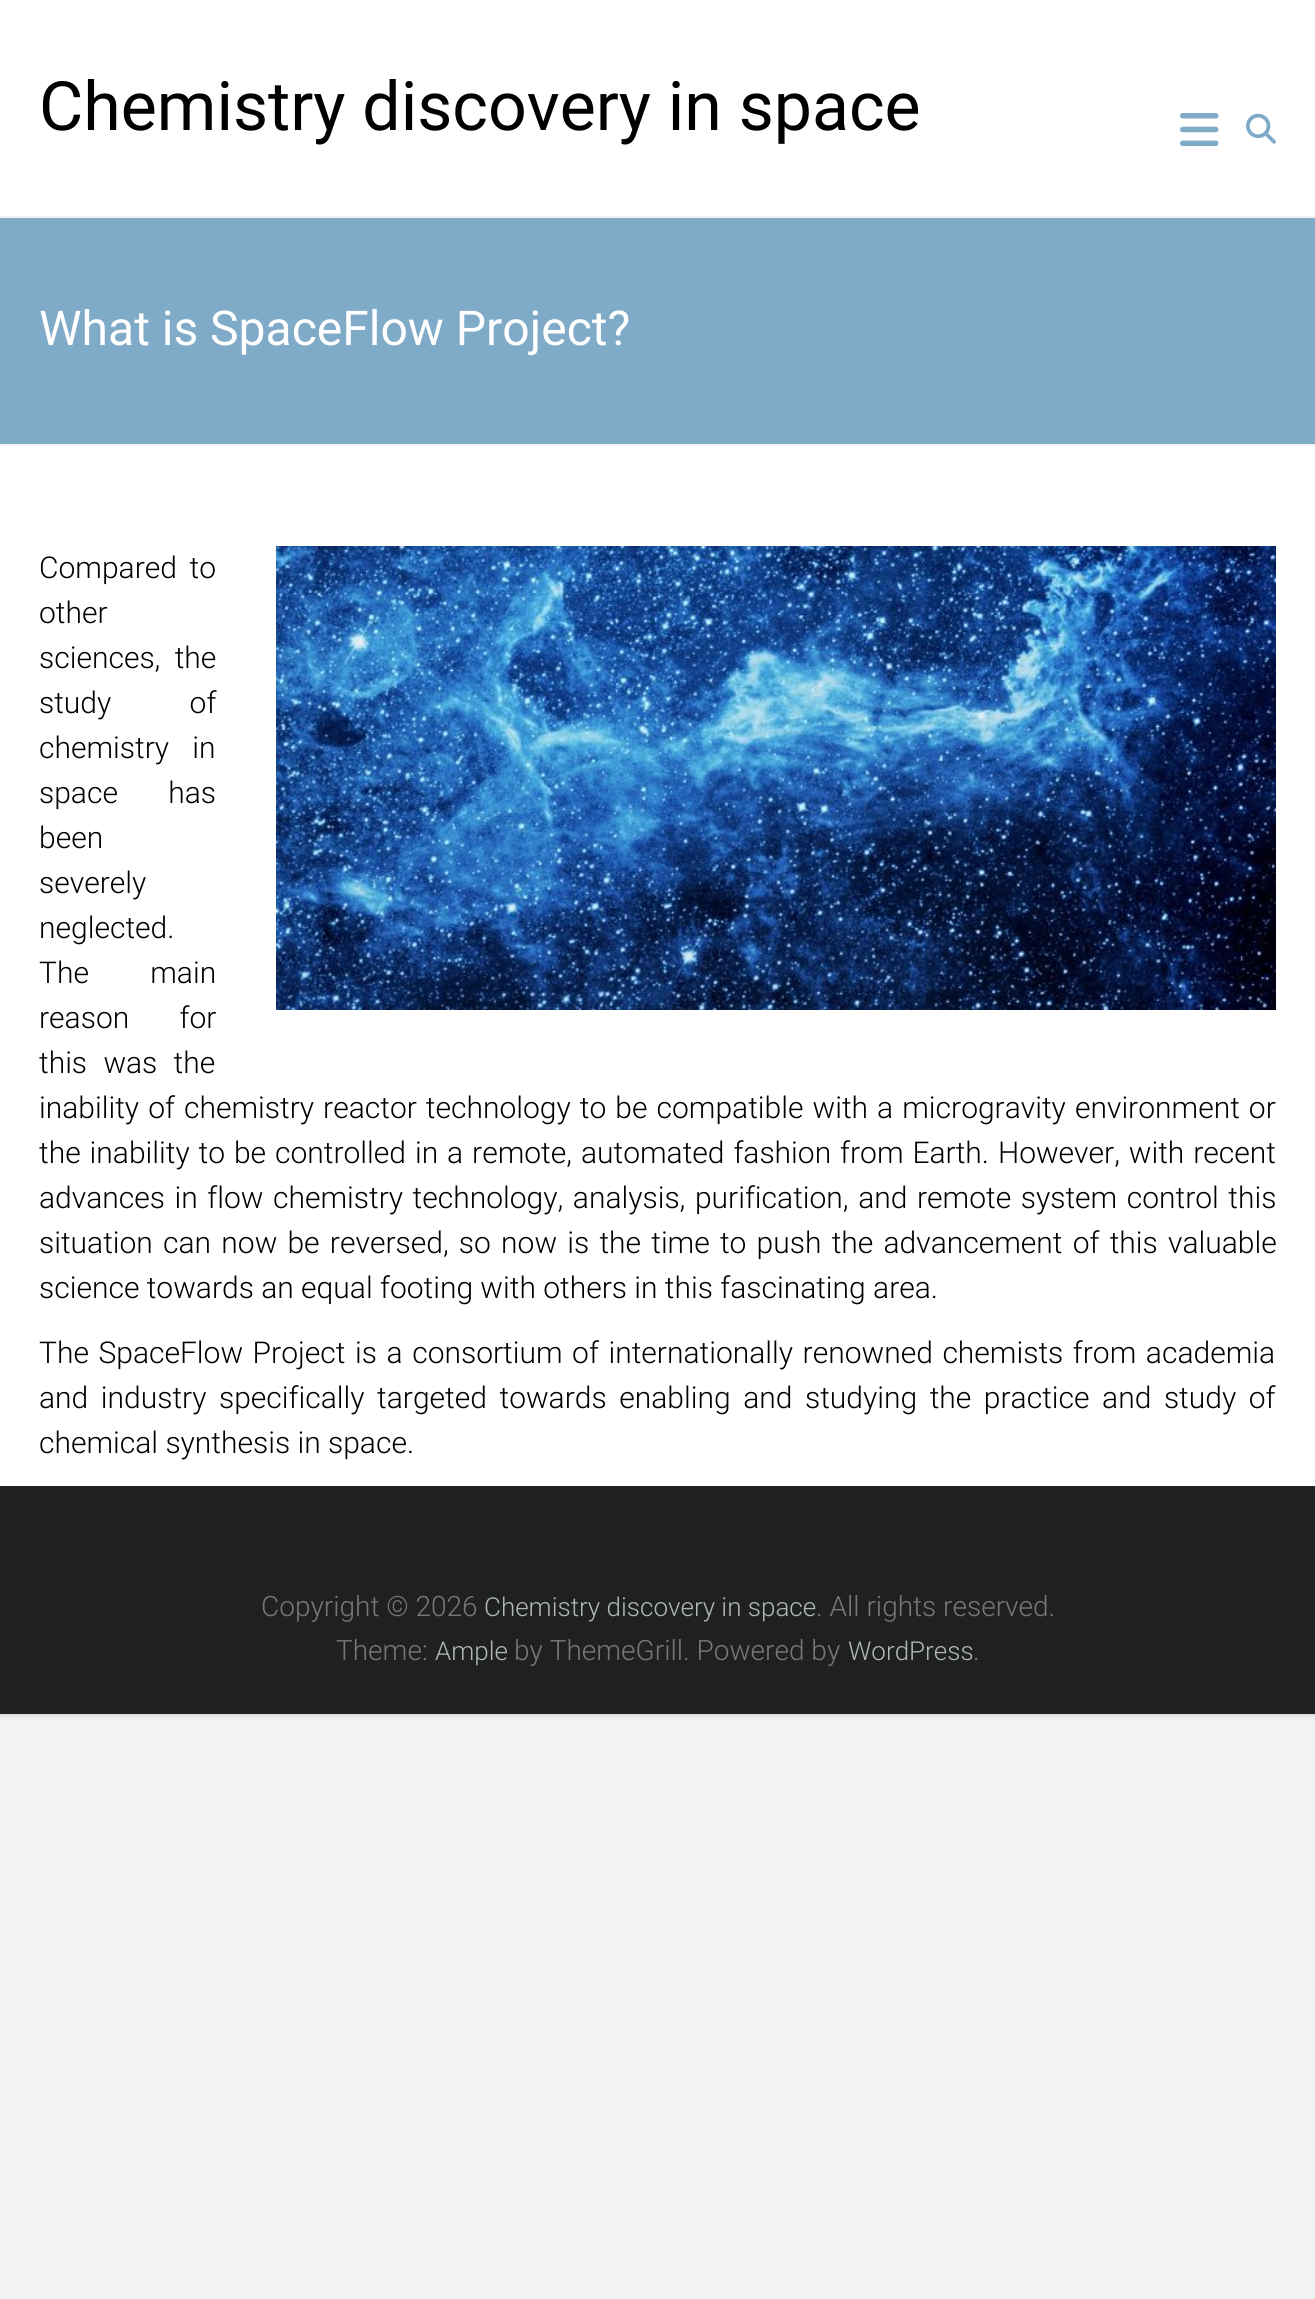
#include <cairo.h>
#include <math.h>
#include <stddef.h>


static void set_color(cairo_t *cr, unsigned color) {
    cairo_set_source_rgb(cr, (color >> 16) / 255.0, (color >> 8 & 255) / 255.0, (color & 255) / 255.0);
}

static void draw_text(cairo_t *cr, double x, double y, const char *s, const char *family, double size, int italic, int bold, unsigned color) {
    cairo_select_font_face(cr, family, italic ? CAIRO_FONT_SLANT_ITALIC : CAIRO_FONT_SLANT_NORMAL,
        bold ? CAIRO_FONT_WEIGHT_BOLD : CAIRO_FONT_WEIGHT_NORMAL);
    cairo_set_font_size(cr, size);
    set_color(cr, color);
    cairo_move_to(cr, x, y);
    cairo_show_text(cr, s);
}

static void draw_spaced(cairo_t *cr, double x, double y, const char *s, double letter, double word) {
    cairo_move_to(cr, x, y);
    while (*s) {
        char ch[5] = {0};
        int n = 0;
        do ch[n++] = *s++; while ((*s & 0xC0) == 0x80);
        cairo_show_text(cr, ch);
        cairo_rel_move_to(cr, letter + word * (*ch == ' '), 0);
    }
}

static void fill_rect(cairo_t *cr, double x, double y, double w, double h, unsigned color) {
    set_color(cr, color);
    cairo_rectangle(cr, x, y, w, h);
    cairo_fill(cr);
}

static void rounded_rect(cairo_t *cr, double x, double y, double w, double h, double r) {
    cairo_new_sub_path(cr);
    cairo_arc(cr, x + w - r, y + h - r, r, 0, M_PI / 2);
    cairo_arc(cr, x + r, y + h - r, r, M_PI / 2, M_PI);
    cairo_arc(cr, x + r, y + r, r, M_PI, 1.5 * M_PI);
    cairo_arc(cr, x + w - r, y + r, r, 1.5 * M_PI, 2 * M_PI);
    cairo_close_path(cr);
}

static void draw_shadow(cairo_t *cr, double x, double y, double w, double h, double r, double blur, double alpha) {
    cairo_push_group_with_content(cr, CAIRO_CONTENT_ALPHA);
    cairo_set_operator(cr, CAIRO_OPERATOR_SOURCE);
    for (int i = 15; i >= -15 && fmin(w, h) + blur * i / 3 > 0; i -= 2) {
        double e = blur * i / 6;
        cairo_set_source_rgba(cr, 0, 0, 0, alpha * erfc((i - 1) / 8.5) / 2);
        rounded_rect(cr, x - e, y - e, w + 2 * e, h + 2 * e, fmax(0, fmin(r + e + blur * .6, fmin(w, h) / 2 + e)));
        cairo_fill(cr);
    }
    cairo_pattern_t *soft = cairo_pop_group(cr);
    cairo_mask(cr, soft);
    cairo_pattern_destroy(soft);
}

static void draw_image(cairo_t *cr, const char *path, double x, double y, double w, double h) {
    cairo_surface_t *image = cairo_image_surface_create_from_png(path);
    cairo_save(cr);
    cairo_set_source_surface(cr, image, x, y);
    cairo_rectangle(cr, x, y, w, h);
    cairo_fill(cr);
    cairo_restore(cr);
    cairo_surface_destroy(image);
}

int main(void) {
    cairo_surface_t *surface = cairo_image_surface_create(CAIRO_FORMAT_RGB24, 1315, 2299);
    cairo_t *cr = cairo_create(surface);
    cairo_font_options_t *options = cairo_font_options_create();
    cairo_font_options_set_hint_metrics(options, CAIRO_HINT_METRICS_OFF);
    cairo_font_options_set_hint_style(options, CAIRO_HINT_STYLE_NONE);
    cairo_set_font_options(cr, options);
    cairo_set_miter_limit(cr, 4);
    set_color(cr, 0xF2F2F2);
    cairo_paint(cr);
    set_color(cr, 0x000000);
    draw_shadow(cr, 0, 2, 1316, 1714, 0, 2, 0.1);
    fill_rect(cr, 0, 0, 1315, 1486, 0xFFFFFF);
    fill_rect(cr, 0, 216, 1315, 2, 0xF2F2F2);
    draw_text(cr, 39, 130, "Chemistry discovery in space", "Roboto", 68, 0, 0, 0x000000);
    draw_image(cr, "assets/img1.png", 1180, 113, 39, 33);
    draw_image(cr, "assets/img2.png", 1246, 113, 30, 31);
    fill_rect(cr, 0, 218, 1315, 226, 0x80ABC8);
    fill_rect(cr, 0, 444, 1315, 2, 0xF2F2F2);
    draw_text(cr, 39, 345, "What is SpaceFlow Project?", "Roboto", 48, 0, 0, 0xFFFFFF);
    draw_image(cr, "assets/img3.png", 276, 546, 1000, 464);
    cairo_select_font_face(cr, "Roboto Light", CAIRO_FONT_SLANT_NORMAL, CAIRO_FONT_WEIGHT_NORMAL);
    cairo_set_font_size(cr, 30);
    set_color(cr, 0x000000);
    draw_spaced(cr, 39, 578, "Compared to", 0, 5.25);
    draw_text(cr, 39, 623, "other", "Roboto Light", 30, 0, 0, 0x000000);
    draw_spaced(cr, 39, 668, "sciences, the", 0, 7);
    draw_spaced(cr, 39, 713, "study of", 0, 71);
    draw_spaced(cr, 39, 758, "chemistry in", 0, 16);
    draw_spaced(cr, 39, 803, "space has", 0, 43);
    draw_text(cr, 39, 848, "been", "Roboto Light", 30, 0, 0, 0x000000);
    draw_text(cr, 39, 893, "severely", "Roboto Light", 30, 0, 0, 0x000000);
    draw_text(cr, 39, 938, "neglected.", "Roboto Light", 30, 0, 0, 0x000000);
    draw_spaced(cr, 39, 983, "The main", 0, 54);
    draw_spaced(cr, 39, 1028, "reason for", 0, 43);
    draw_spaced(cr, 39, 1073, "this was the", 0, 9);
    draw_spaced(cr, 39, 1118, "inability of chemistry reactor technology to be compatible with a microgravity environment or", 0, 1.75);
    draw_spaced(cr, 39, 1163, "the inability to be controlled in a remote, automated fashion from Earth. However, with recent", 0, 1.6);
    draw_spaced(cr, 39, 1208, "advances in flow chemistry technology, analysis, purification, and remote system control this", 0, 2.25);
    draw_spaced(cr, 39, 1253, "situation can now be reversed, so now is the time to push the advancement of this valuable", 0, 2.9);
    draw_text(cr, 39, 1298, "science towards an equal footing with others in this fascinating area.", "Roboto Light", 30, 0, 0, 0x000000);
    draw_spaced(cr, 39, 1363, "The SpaceFlow Project is a consortium of internationally renowned chemists from academia", 0, 2.25);
    draw_spaced(cr, 39, 1408, "and industry specifically targeted towards enabling and studying the practice and study of", 0, 5.25);
    draw_text(cr, 39, 1453, "chemical synthesis in space.", "Roboto Light", 30, 0, 0, 0x000000);
    fill_rect(cr, 0, 1486, 1315, 228, 0x1F2021);
    draw_text(cr, 261, 1616, "Copyright © 2026", "Roboto Light", 28, 0, 0, 0x777777);
    draw_text(cr, 484, 1616, "Chemistry discovery in space", "Roboto Light", 26, 0, 0, 0xB1B6B6);
    draw_text(cr, 816, 1616, ". All rights reserved.", "Roboto Light", 28, 0, 0, 0x777777);
    draw_text(cr, 336, 1660, "Theme:", "Roboto Light", 28, 0, 0, 0x777777);
    draw_text(cr, 435, 1660, "Ample", "Roboto Light", 26, 0, 0, 0xB1B6B6);
    draw_text(cr, 514, 1660, "by ThemeGrill. Powered by", "Roboto Light", 28, 0, 0, 0x777777);
    draw_text(cr, 848, 1660, "WordPress", "Roboto Light", 26, 0, 0, 0xB1B6B6);
    draw_text(cr, 973, 1660, ".", "Roboto Light", 28, 0, 0, 0x777777);
    cairo_surface_write_to_png(surface, "output.png");
    cairo_font_options_destroy(options);
    cairo_destroy(cr);
    cairo_surface_destroy(surface);
    return 0;
}
